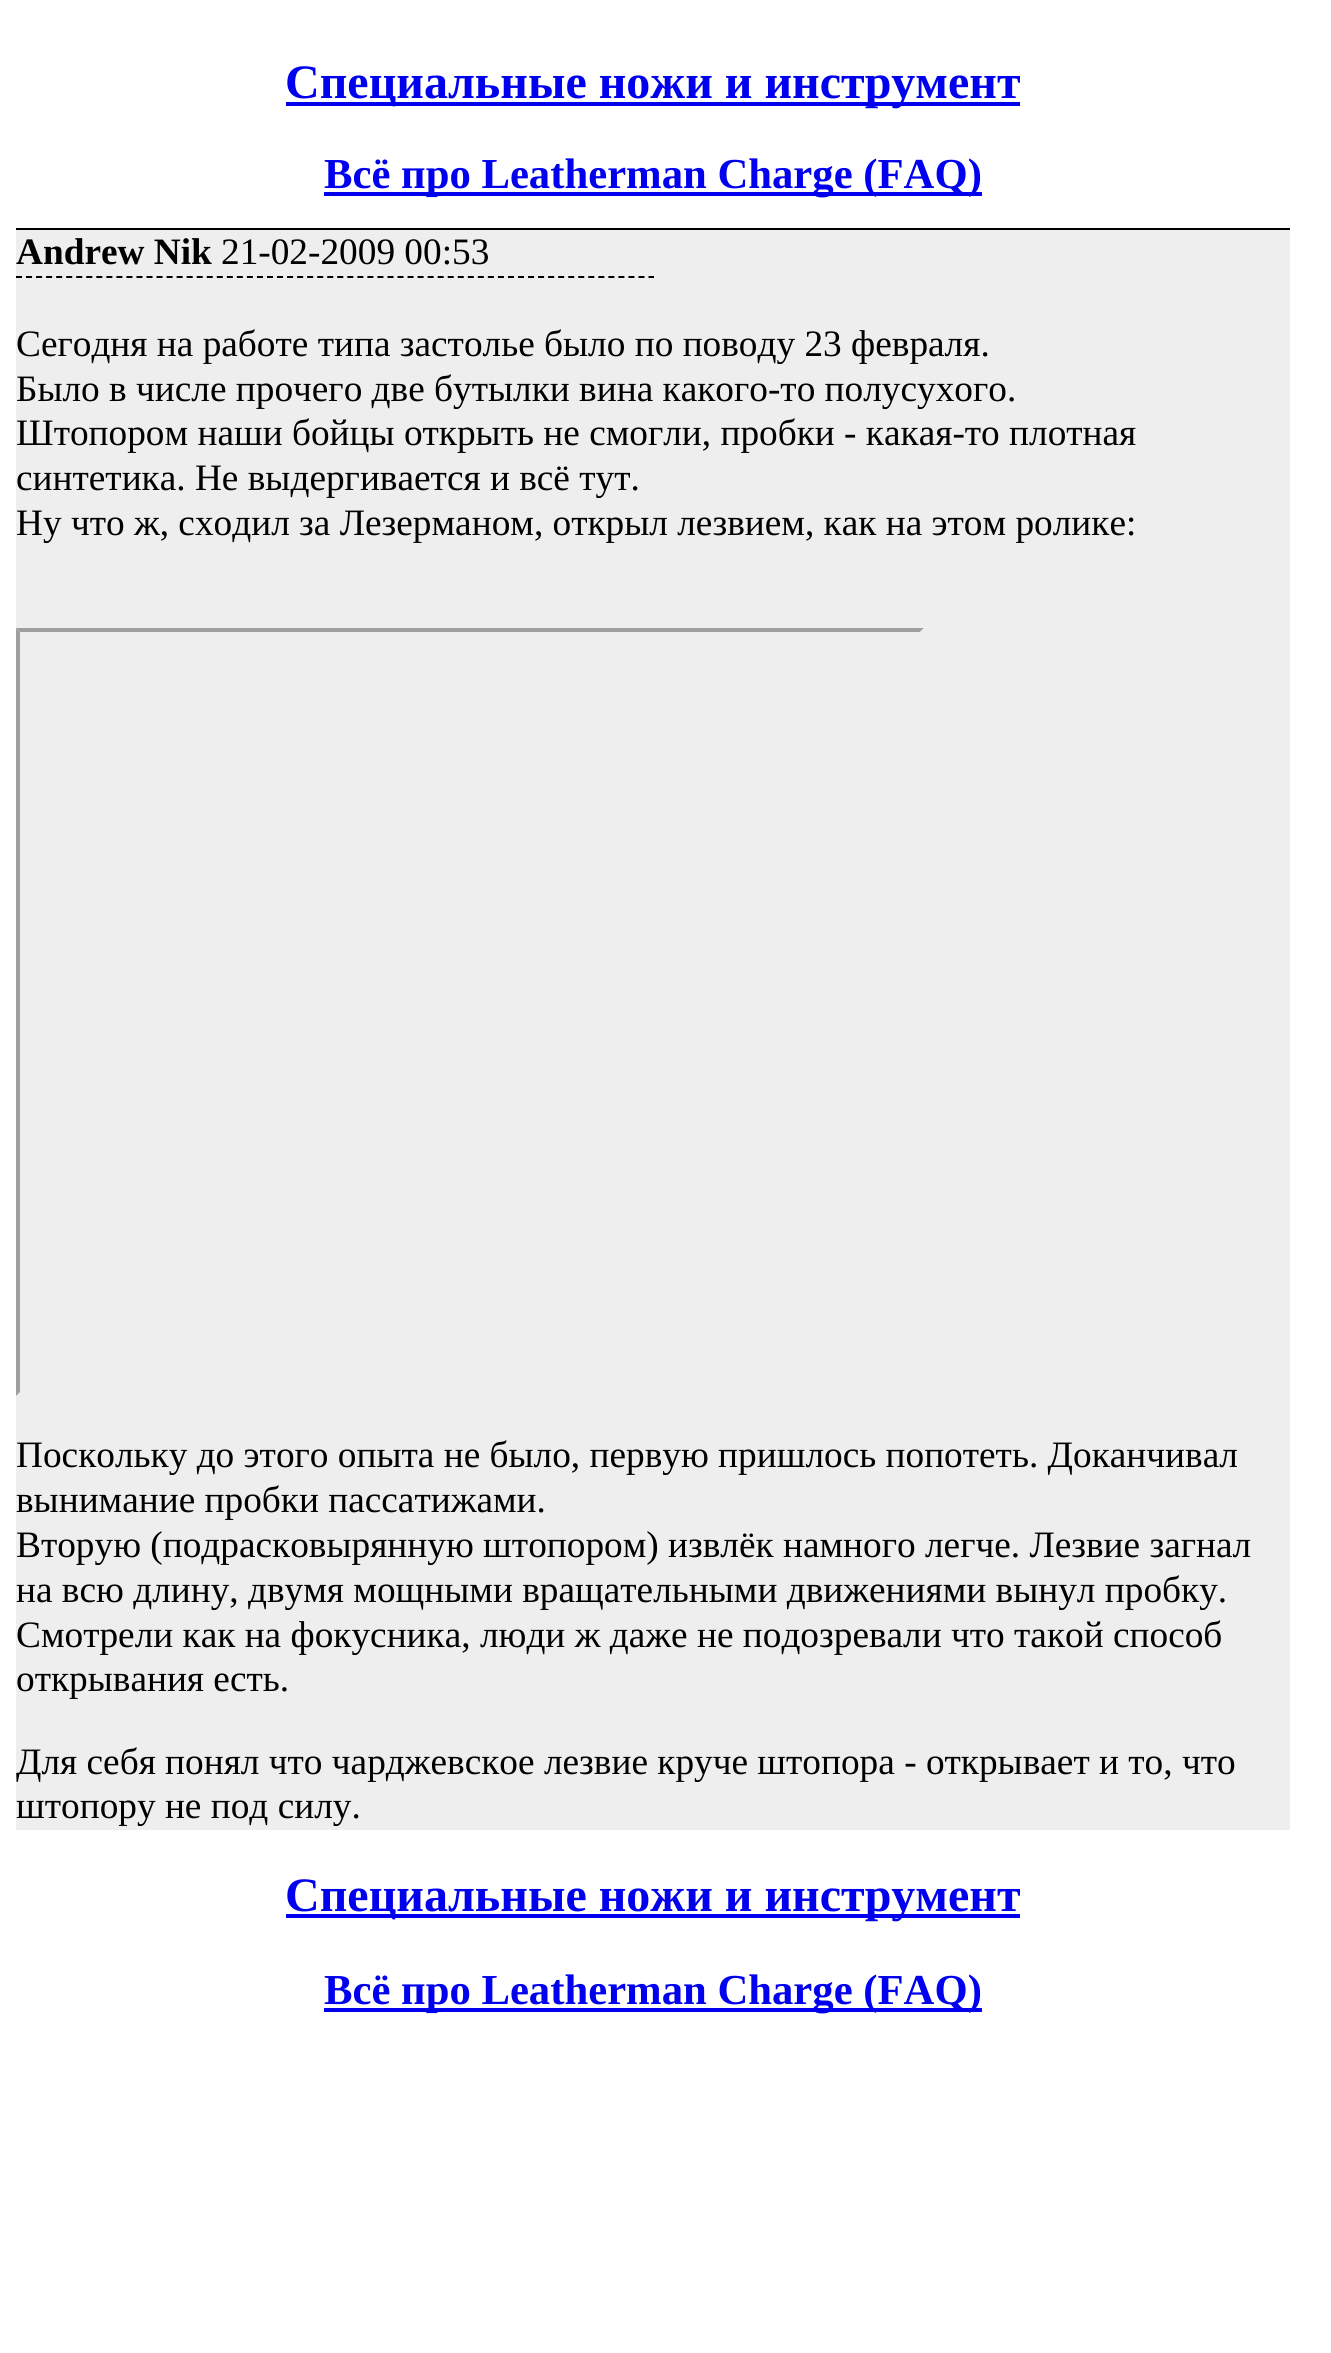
#include <cairo.h>
#include <math.h>
#include <stddef.h>


static void set_color(cairo_t *cr, unsigned color) {
    cairo_set_source_rgb(cr, (color >> 16) / 255.0, (color >> 8 & 255) / 255.0, (color & 255) / 255.0);
}

static void draw_text(cairo_t *cr, double x, double y, const char *s, const char *family, double size, int italic, int bold, unsigned color) {
    cairo_select_font_face(cr, family, italic ? CAIRO_FONT_SLANT_ITALIC : CAIRO_FONT_SLANT_NORMAL,
        bold ? CAIRO_FONT_WEIGHT_BOLD : CAIRO_FONT_WEIGHT_NORMAL);
    cairo_set_font_size(cr, size);
    set_color(cr, color);
    cairo_move_to(cr, x, y);
    cairo_show_text(cr, s);
}

static void fill_rect(cairo_t *cr, double x, double y, double w, double h, unsigned color) {
    set_color(cr, color);
    cairo_rectangle(cr, x, y, w, h);
    cairo_fill(cr);
}

int main(void) {
    cairo_surface_t *surface = cairo_image_surface_create(CAIRO_FORMAT_RGB24, 1331, 2353);
    cairo_t *cr = cairo_create(surface);
    cairo_font_options_t *options = cairo_font_options_create();
    cairo_font_options_set_hint_metrics(options, CAIRO_HINT_METRICS_OFF);
    cairo_font_options_set_hint_style(options, CAIRO_HINT_STYLE_NONE);
    cairo_set_font_options(cr, options);
    cairo_set_miter_limit(cr, 4);
    set_color(cr, 0xFFFFFF);
    cairo_paint(cr);
    fill_rect(cr, 286, 102, 734, 4, 0x0000EE);
    draw_text(cr, 285, 98, "Специальные ножи и инструмент", "Liberation Serif", 48, 0, 1, 0x0000EE);
    fill_rect(cr, 324, 192, 658, 4, 0x0000EE);
    draw_text(cr, 324, 188, "Всё про Leatherman Charge (FAQ)", "Liberation Serif", 42.7, 0, 1, 0x0000EE);
    fill_rect(cr, 16, 230, 1274, 1600, 0xEEEEEE);
    fill_rect(cr, 16, 228, 1274, 2, 0x000000);
    cairo_new_path(cr);
    cairo_move_to(cr, 16, 277);
    cairo_line_to(cr, 654, 277);
    cairo_set_dash(cr, (double[]){6, 4.04}, 2, 0);
    cairo_stroke(cr);
    draw_text(cr, 16, 264, "Andrew Nik", "Liberation Serif", 37.3, 0, 1, 0x000000);
    draw_text(cr, 221, 264, "21-02-2009 00:53", "Liberation Serif", 37.3, 0, 0, 0x000000);
    draw_text(cr, 16, 356, "Сегодня на работе типа застолье было по поводу 23 февраля.", "Liberation Serif", 37.3, 0, 0, 0x000000);
    draw_text(cr, 16, 401, "Было в числе прочего две бутылки вина какого-то полусухого.", "Liberation Serif", 37.3, 0, 0, 0x000000);
    draw_text(cr, 16, 445, "Штопором наши бойцы открыть не смогли, пробки - какая-то плотная", "Liberation Serif", 37.3, 0, 0, 0x000000);
    draw_text(cr, 16, 490, "синтетика. Не выдергивается и всё тут.", "Liberation Serif", 37.3, 0, 0, 0x000000);
    draw_text(cr, 16, 535, "Ну что ж, сходил за Лезерманом, открыл лезвием, как на этом ролике:", "Liberation Serif", 37.3, 0, 0, 0x000000);
    set_color(cr, 0x9F9F9F);
    cairo_new_path(cr);
    cairo_move_to(cr, 16, 628);
    cairo_line_to(cr, 924, 628);
    cairo_line_to(cr, 920, 632);
    cairo_line_to(cr, 20, 632);
    cairo_close_path(cr);
    cairo_fill(cr);
    cairo_new_path(cr);
    cairo_move_to(cr, 16, 1396);
    cairo_line_to(cr, 16, 628);
    cairo_line_to(cr, 20, 632);
    cairo_line_to(cr, 20, 1392);
    cairo_close_path(cr);
    cairo_fill(cr);
    set_color(cr, 0xEEEEEE);
    cairo_new_path(cr);
    cairo_move_to(cr, 924, 628);
    cairo_line_to(cr, 924, 1396);
    cairo_line_to(cr, 920, 1392);
    cairo_line_to(cr, 920, 632);
    cairo_close_path(cr);
    cairo_fill(cr);
    draw_text(cr, 16, 1467, "Поскольку до этого опыта не было, первую пришлось попотеть. Доканчивал", "Liberation Serif", 37.3, 0, 0, 0x000000);
    draw_text(cr, 16, 1512, "вынимание пробки пассатижами.", "Liberation Serif", 37.3, 0, 0, 0x000000);
    draw_text(cr, 16, 1557, "Вторую (подрасковырянную штопором) извлёк намного легче. Лезвие загнал", "Liberation Serif", 37.3, 0, 0, 0x000000);
    draw_text(cr, 16, 1602, "на всю длину, двумя мощными вращательными движениями вынул пробку.", "Liberation Serif", 37.3, 0, 0, 0x000000);
    draw_text(cr, 16, 1647, "Смотрели как на фокусника, люди ж даже не подозревали что такой способ", "Liberation Serif", 37.3, 0, 0, 0x000000);
    draw_text(cr, 16, 1691, "открывания есть.", "Liberation Serif", 37.3, 0, 0, 0x000000);
    draw_text(cr, 16, 1774, "Для себя понял что чарджевское лезвие круче штопора - открывает и то, что", "Liberation Serif", 37.3, 0, 0, 0x000000);
    draw_text(cr, 16, 1818, "штопору не под силу.", "Liberation Serif", 37.3, 0, 0, 0x000000);
    fill_rect(cr, 286, 1914, 734, 4, 0x0000EE);
    draw_text(cr, 285, 1911, "Специальные ножи и инструмент", "Liberation Serif", 48, 0, 1, 0x0000EE);
    fill_rect(cr, 324, 2008, 658, 4, 0x0000EE);
    draw_text(cr, 324, 2004, "Всё про Leatherman Charge (FAQ)", "Liberation Serif", 42.7, 0, 1, 0x0000EE);
    cairo_surface_write_to_png(surface, "output.png");
    cairo_font_options_destroy(options);
    cairo_destroy(cr);
    cairo_surface_destroy(surface);
    return 0;
}
